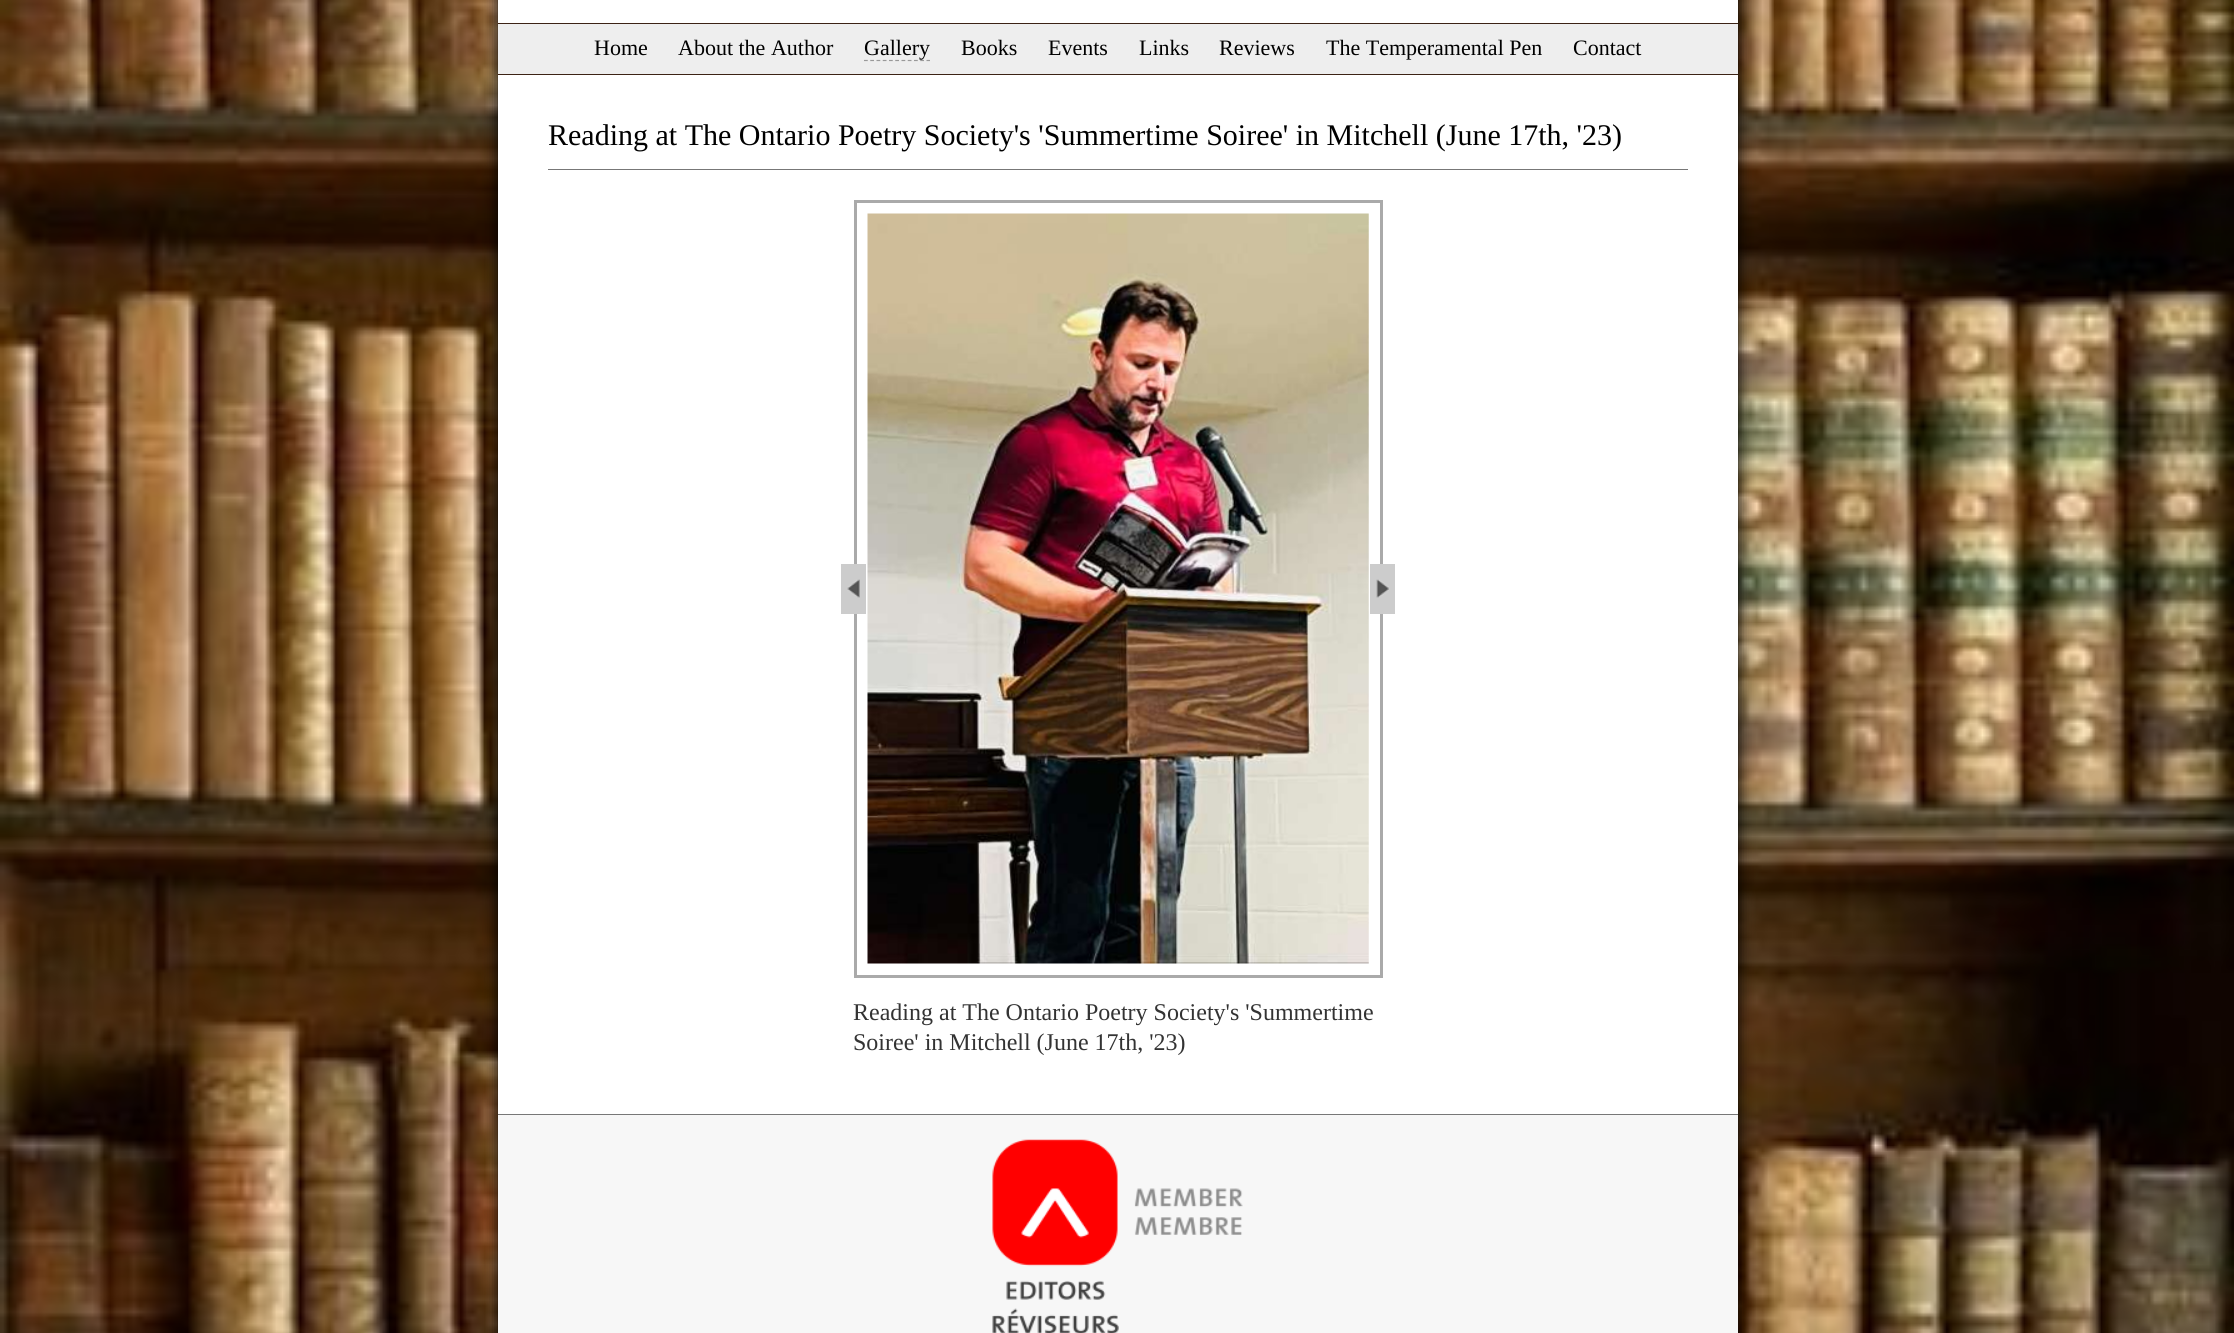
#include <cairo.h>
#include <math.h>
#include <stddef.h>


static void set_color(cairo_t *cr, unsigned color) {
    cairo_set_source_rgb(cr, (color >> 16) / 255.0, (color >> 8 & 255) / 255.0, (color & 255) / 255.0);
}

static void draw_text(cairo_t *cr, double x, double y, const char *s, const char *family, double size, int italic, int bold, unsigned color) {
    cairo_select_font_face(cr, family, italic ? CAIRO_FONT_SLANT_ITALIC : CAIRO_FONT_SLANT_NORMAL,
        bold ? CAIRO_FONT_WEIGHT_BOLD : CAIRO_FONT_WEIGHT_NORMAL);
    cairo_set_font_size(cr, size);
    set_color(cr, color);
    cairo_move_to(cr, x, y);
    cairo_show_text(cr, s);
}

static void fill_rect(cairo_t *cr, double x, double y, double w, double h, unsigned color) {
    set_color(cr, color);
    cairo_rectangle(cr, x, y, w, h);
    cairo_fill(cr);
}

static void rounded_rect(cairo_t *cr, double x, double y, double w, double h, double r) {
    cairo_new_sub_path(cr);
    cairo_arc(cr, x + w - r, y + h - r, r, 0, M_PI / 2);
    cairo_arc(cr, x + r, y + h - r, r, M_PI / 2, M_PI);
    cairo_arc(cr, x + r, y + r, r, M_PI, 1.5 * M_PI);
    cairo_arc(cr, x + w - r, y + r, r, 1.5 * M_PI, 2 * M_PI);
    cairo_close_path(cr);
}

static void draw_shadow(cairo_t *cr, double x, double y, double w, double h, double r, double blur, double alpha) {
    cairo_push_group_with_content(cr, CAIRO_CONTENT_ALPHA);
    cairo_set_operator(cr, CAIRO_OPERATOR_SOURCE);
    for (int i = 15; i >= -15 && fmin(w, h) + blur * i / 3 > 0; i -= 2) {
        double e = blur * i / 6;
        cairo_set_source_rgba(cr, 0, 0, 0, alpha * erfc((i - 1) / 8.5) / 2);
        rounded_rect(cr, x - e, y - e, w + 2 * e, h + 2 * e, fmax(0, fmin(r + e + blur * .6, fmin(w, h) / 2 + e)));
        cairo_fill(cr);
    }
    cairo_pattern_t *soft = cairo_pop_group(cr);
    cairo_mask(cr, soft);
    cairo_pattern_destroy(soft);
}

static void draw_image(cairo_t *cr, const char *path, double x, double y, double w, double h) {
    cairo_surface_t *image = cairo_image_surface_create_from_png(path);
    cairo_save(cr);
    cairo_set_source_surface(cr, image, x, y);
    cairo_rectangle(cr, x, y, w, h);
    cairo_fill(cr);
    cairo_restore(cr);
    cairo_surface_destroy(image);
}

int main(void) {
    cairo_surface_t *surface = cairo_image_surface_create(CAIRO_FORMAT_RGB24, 2234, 1333);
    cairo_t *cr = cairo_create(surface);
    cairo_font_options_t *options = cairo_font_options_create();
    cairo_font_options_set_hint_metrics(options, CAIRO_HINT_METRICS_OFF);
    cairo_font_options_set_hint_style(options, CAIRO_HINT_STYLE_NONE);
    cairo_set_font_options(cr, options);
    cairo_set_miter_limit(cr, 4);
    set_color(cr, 0xFFFFFF);
    cairo_paint(cr);
    draw_image(cr, "assets/img1.png", 0, 0, 2234, 1333);
    set_color(cr, 0x000000);
    draw_shadow(cr, 498, -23, 1240, 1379, 0, 7.5, 1);
    fill_rect(cr, 498, 0, 1240, 1114, 0xFFFFFF);
    fill_rect(cr, 498, 24, 1240, 50, 0xEEEEEE);
    fill_rect(cr, 498, 23, 1240, 1, 0x3C2315);
    fill_rect(cr, 498, 74, 1240, 1, 0x3C2315);
    draw_text(cr, 594, 55, "Home", "Liberation Serif", 22, 0, 0, 0x000000);
    draw_text(cr, 678, 55, "About the Author", "Liberation Serif", 22, 0, 0, 0x000000);
    cairo_new_path(cr);
    cairo_move_to(cr, 864, 60.5);
    cairo_line_to(cr, 930, 60.5);
    set_color(cr, 0x999999);
    cairo_set_line_width(cr, 1.2);
    cairo_set_dash(cr, (double[]){3.75, 2.5}, 2, 0);
    cairo_stroke(cr);
    draw_text(cr, 864, 55, "Gallery", "Liberation Serif", 22, 0, 0, 0x000000);
    draw_text(cr, 961, 55, "Books", "Liberation Serif", 22, 0, 0, 0x000000);
    draw_text(cr, 1048, 55, "Events", "Liberation Serif", 22, 0, 0, 0x000000);
    draw_text(cr, 1139, 55, "Links", "Liberation Serif", 22, 0, 0, 0x000000);
    draw_text(cr, 1219, 55, "Reviews", "Liberation Serif", 22, 0, 0, 0x000000);
    draw_text(cr, 1326, 55, "The Temperamental Pen", "Liberation Serif", 22, 0, 0, 0x000000);
    draw_text(cr, 1573, 55, "Contact", "Liberation Serif", 22, 0, 0, 0x000000);
    fill_rect(cr, 548, 169, 1140, 1, 0x777777);
    draw_text(cr, 548, 145, "Reading at The Ontario Poetry Society's 'Summertime Soiree' in Mitchell (June 17th, '23)", "Liberation Serif", 30, 0, 0, 0x000000);
    cairo_rectangle(cr, 855.5, 201.5, 526, 775);
    set_color(cr, 0xAAAAAA);
    cairo_set_line_width(cr, 3);
    cairo_set_dash(cr, NULL, 0, 0);
    cairo_stroke(cr);
    fill_rect(cr, 841, 564, 25, 50, 0xCCCCCC);
    draw_image(cr, "assets/img2.png", 847, 579, 13, 19);
    draw_image(cr, "assets/img3.png", 867, 213, 502, 751);
    fill_rect(cr, 1370, 564, 25, 50, 0xCCCCCC);
    draw_image(cr, "assets/img4.png", 1376, 579, 13, 19);
    draw_text(cr, 853, 1020, "Reading at The Ontario Poetry Society's 'Summertime", "Liberation Serif", 24, 0, 0, 0x333333);
    draw_text(cr, 853, 1050, "Soiree' in Mitchell (June 17th, '23)", "Liberation Serif", 24, 0, 0, 0x333333);
    fill_rect(cr, 498, 1115, 1240, 218, 0xF7F7F7);
    fill_rect(cr, 498, 1114, 1240, 1, 0x777777);
    draw_image(cr, "assets/img5.png", 992, 1139, 251, 194);
    cairo_surface_write_to_png(surface, "output.png");
    cairo_font_options_destroy(options);
    cairo_destroy(cr);
    cairo_surface_destroy(surface);
    return 0;
}
